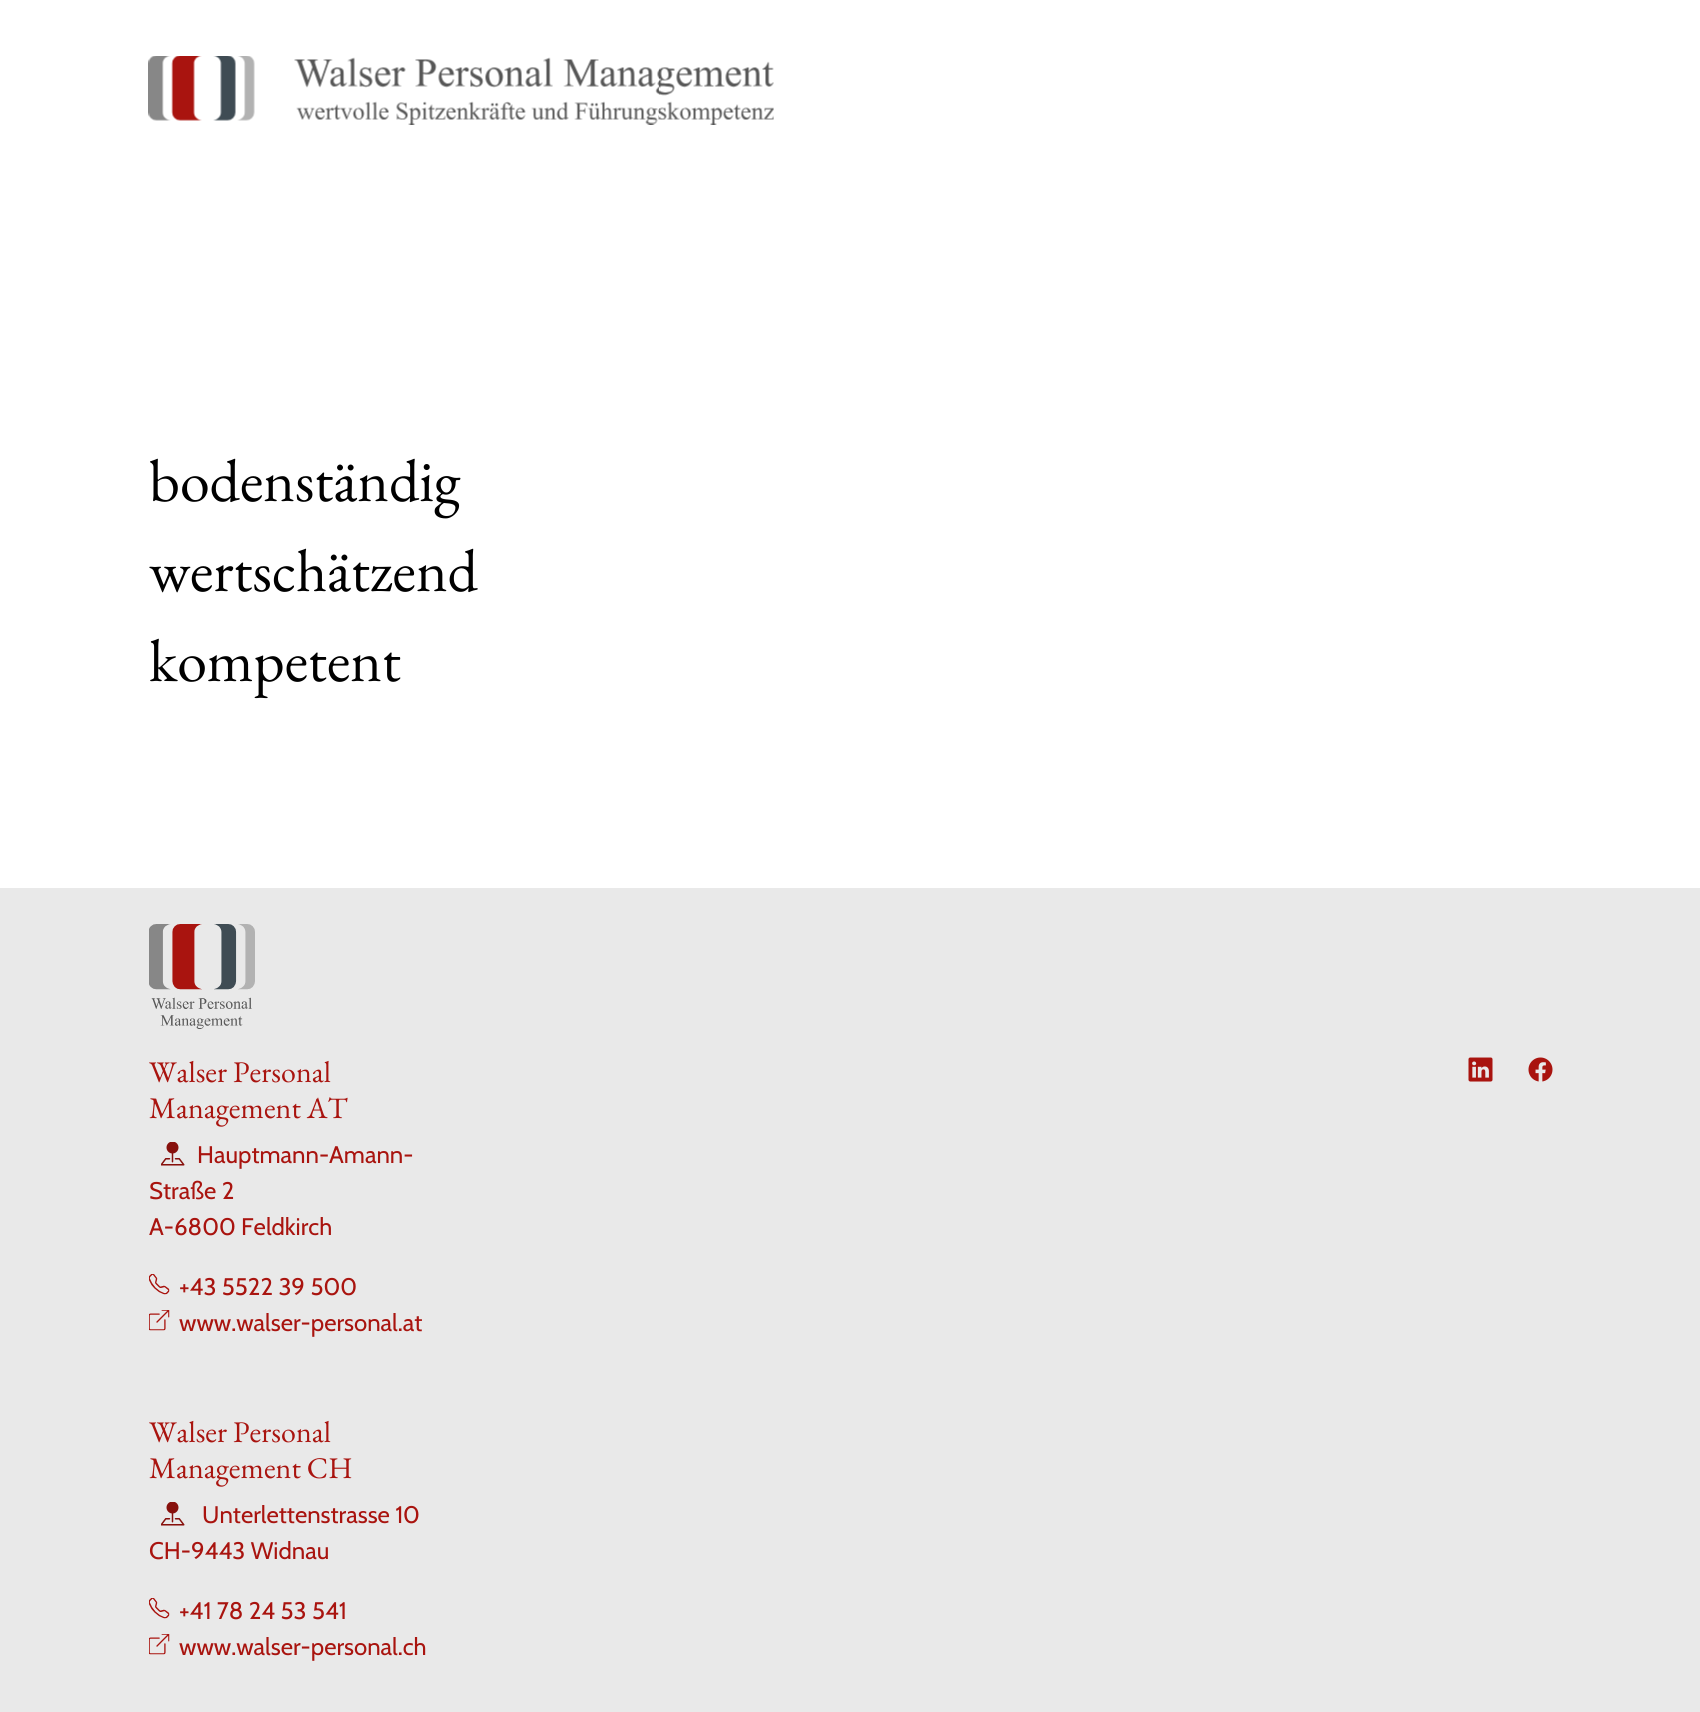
#include <cairo.h>
#include <math.h>
#include <stddef.h>


static void set_color(cairo_t *cr, unsigned color) {
    cairo_set_source_rgb(cr, (color >> 16) / 255.0, (color >> 8 & 255) / 255.0, (color & 255) / 255.0);
}

static void draw_text(cairo_t *cr, double x, double y, const char *s, const char *family, double size, int italic, int bold, unsigned color) {
    cairo_select_font_face(cr, family, italic ? CAIRO_FONT_SLANT_ITALIC : CAIRO_FONT_SLANT_NORMAL,
        bold ? CAIRO_FONT_WEIGHT_BOLD : CAIRO_FONT_WEIGHT_NORMAL);
    cairo_set_font_size(cr, size);
    set_color(cr, color);
    cairo_move_to(cr, x, y);
    cairo_show_text(cr, s);
}

static void fill_rect(cairo_t *cr, double x, double y, double w, double h, unsigned color) {
    set_color(cr, color);
    cairo_rectangle(cr, x, y, w, h);
    cairo_fill(cr);
}

static void draw_image(cairo_t *cr, const char *path, double x, double y, double w, double h) {
    cairo_surface_t *image = cairo_image_surface_create_from_png(path);
    cairo_save(cr);
    cairo_set_source_surface(cr, image, x, y);
    cairo_rectangle(cr, x, y, w, h);
    cairo_fill(cr);
    cairo_restore(cr);
    cairo_surface_destroy(image);
}

int main(void) {
    cairo_surface_t *surface = cairo_image_surface_create(CAIRO_FORMAT_RGB24, 1700, 1712);
    cairo_t *cr = cairo_create(surface);
    cairo_font_options_t *options = cairo_font_options_create();
    cairo_font_options_set_hint_metrics(options, CAIRO_HINT_METRICS_OFF);
    cairo_font_options_set_hint_style(options, CAIRO_HINT_STYLE_NONE);
    cairo_set_font_options(cr, options);
    cairo_set_miter_limit(cr, 4);
    set_color(cr, 0xFFFFFF);
    cairo_paint(cr);
    draw_image(cr, "assets/img1.png", 148, 56, 626, 69);
    draw_text(cr, 149, 501, "bodenständig", "EB Garamond", 60, 0, 0, 0x000000);
    draw_text(cr, 149, 591, "wertschätzend", "EB Garamond", 60, 0, 0, 0x000000);
    draw_text(cr, 149, 681, "kompetent", "EB Garamond", 60, 0, 0, 0x000000);
    fill_rect(cr, 0, 888, 1700, 824, 0xE9E9E9);
    draw_image(cr, "assets/img2.png", 149, 924, 106, 105);
    draw_text(cr, 149, 1082, "Walser Personal", "EB Garamond", 30, 0, 0, 0xA9140F);
    draw_text(cr, 149, 1118, "Management AT", "EB Garamond", 30, 0, 0, 0xA9140F);
    draw_image(cr, "assets/img3.png", 161, 1142, 24, 24);
    draw_text(cr, 197, 1163, "Hauptmann-Amann-", "Cabin", 24, 0, 0, 0xA9140F);
    draw_text(cr, 149, 1199, "Straße 2", "Cabin", 24, 0, 0, 0xA9140F);
    draw_text(cr, 149, 1235, "A-6800 Feldkirch", "Cabin", 24, 0, 0, 0xA9140F);
    draw_image(cr, "assets/img4.png", 149, 1274, 21, 21);
    draw_text(cr, 179, 1295, "+43 5522 39 500", "Cabin", 24, 0, 0, 0xA9140F);
    draw_image(cr, "assets/img5.png", 149, 1310, 21, 21);
    draw_text(cr, 179, 1331, "www.walser-personal.at", "Cabin", 24, 0, 0, 0xA9140F);
    draw_text(cr, 149, 1442, "Walser Personal", "EB Garamond", 30, 0, 0, 0xA9140F);
    draw_text(cr, 149, 1478, "Management CH", "EB Garamond", 30, 0, 0, 0xA9140F);
    draw_image(cr, "assets/img3.png", 161, 1502, 24, 24);
    draw_text(cr, 202, 1523, "Unterlettenstrasse 10", "Cabin", 24, 0, 0, 0xA9140F);
    draw_text(cr, 149, 1559, "CH-9443 Widnau", "Cabin", 24, 0, 0, 0xA9140F);
    draw_image(cr, "assets/img4.png", 149, 1598, 21, 21);
    draw_text(cr, 179, 1619, "+41 78 24 53 541", "Cabin", 24, 0, 0, 0xA9140F);
    draw_image(cr, "assets/img5.png", 149, 1634, 21, 21);
    draw_text(cr, 179, 1655, "www.walser-personal.ch", "Cabin", 24, 0, 0, 0xA9140F);
    draw_image(cr, "assets/img6.png", 1468, 1057, 25, 25);
    draw_image(cr, "assets/img7.png", 1528, 1057, 25, 25);
    cairo_surface_write_to_png(surface, "output.png");
    cairo_font_options_destroy(options);
    cairo_destroy(cr);
    cairo_surface_destroy(surface);
    return 0;
}
